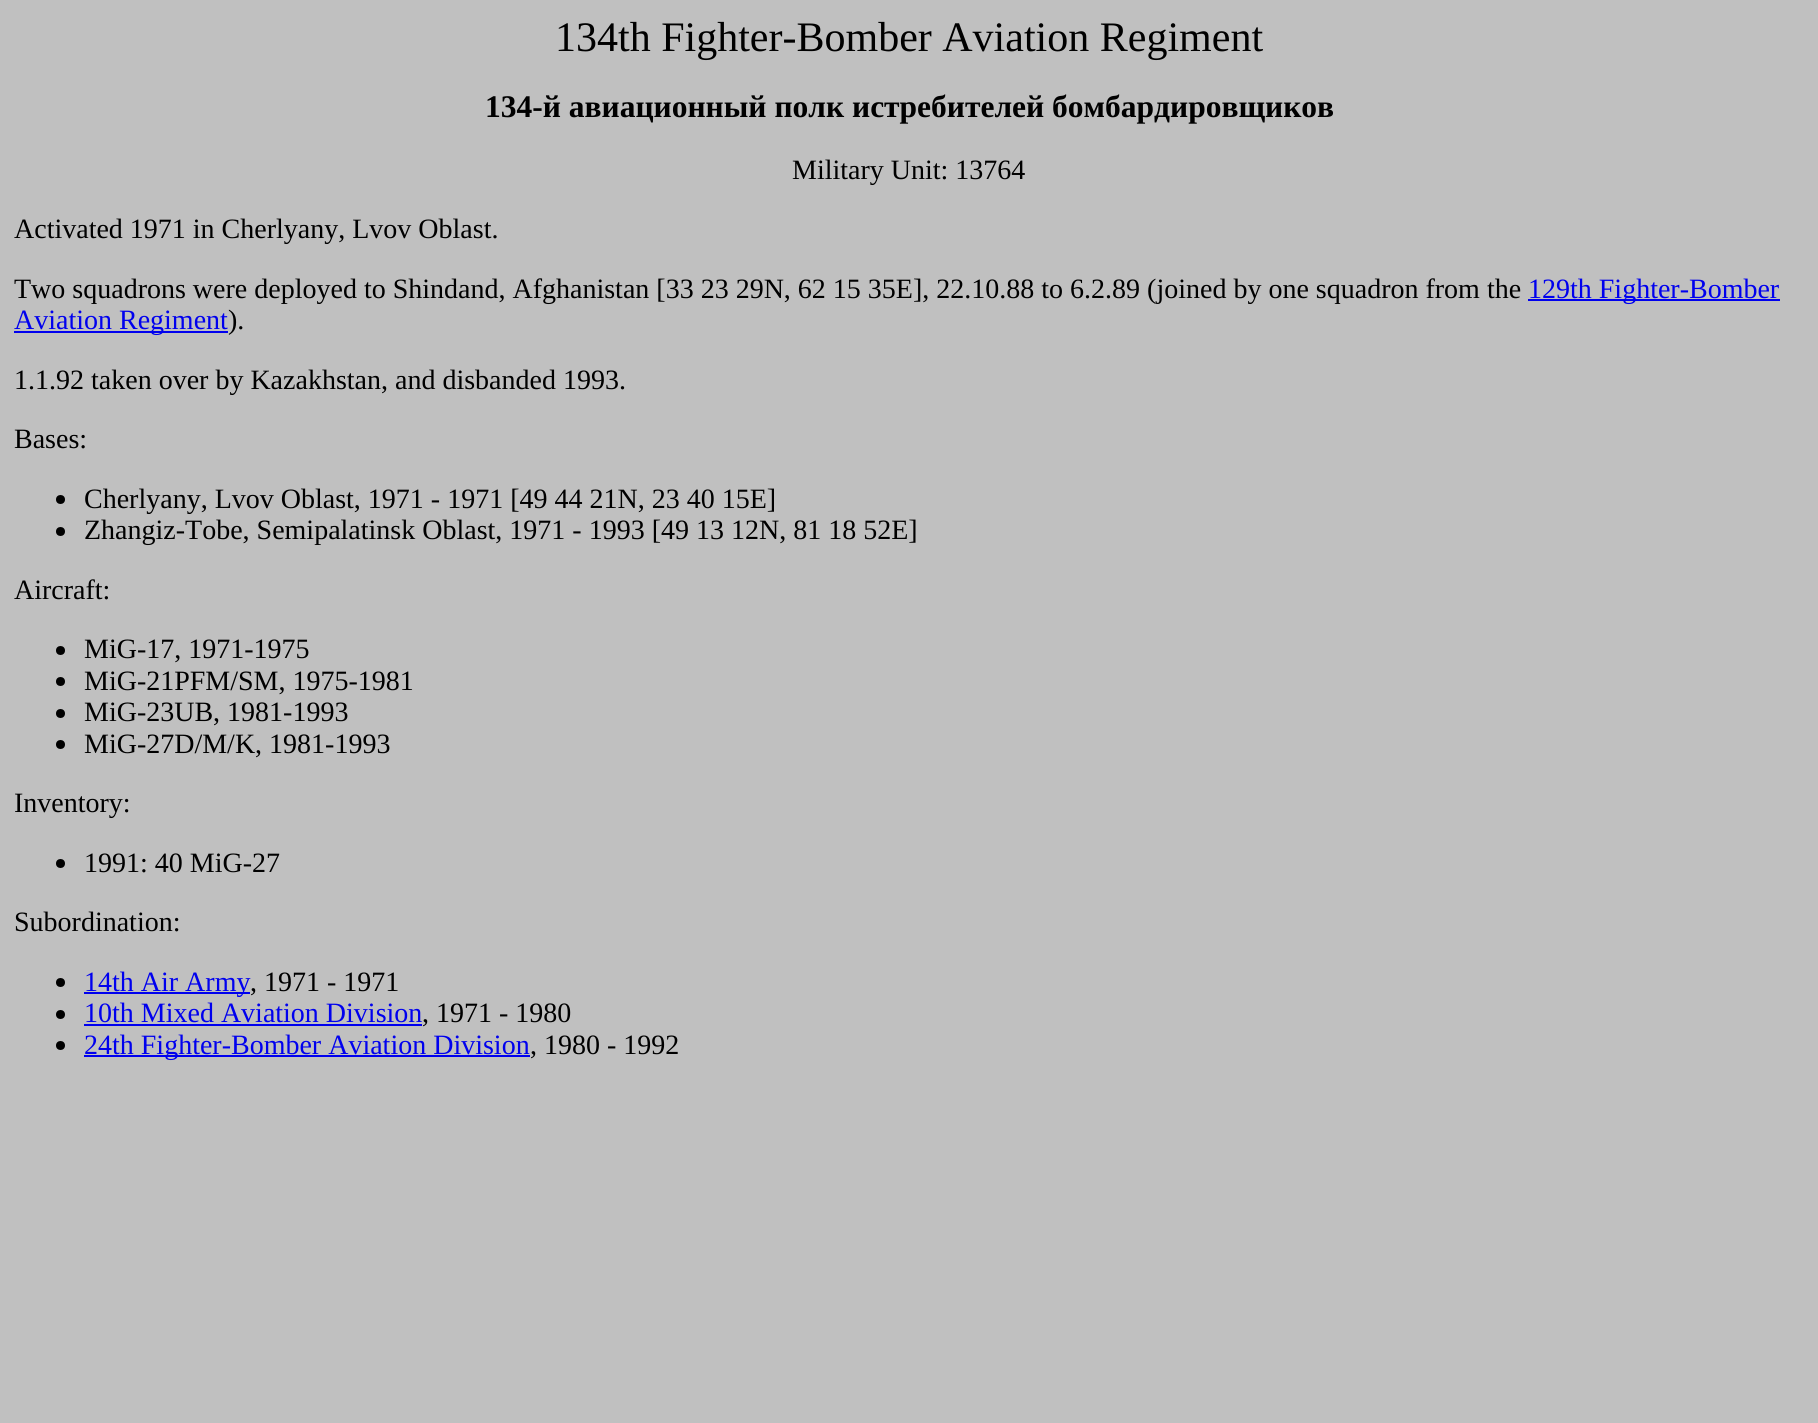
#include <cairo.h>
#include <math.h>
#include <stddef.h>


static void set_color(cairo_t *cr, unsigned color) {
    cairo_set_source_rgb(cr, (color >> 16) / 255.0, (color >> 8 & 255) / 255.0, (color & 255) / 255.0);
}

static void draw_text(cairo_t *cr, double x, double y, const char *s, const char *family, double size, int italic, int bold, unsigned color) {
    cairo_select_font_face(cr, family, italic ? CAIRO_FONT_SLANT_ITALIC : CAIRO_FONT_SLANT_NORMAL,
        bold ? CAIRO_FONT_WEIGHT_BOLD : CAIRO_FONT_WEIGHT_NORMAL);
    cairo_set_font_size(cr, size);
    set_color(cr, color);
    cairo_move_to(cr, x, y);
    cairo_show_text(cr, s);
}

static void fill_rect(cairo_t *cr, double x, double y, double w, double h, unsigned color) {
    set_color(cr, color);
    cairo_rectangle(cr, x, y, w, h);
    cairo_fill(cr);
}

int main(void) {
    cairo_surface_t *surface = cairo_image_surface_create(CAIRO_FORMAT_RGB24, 1818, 1423);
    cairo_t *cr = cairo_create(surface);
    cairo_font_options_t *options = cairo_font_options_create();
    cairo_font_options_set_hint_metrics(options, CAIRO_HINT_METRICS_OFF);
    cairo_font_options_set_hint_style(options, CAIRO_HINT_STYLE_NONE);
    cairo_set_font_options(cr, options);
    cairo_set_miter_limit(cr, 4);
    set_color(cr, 0xC0C0C0);
    cairo_paint(cr);
    draw_text(cr, 555, 51, "134th Fighter-Bomber Aviation Regiment", "Liberation Serif", 42, 0, 0, 0x000000);
    draw_text(cr, 485, 117, "134-й авиационный полк истребителей бомбардировщиков", "Liberation Serif", 31.5, 0, 1, 0x000000);
    draw_text(cr, 792, 179, "Military Unit: 13764", "Liberation Serif", 28, 0, 0, 0x000000);
    draw_text(cr, 14, 238, "Activated 1971 in Cherlyany, Lvov Oblast.", "Liberation Serif", 28, 0, 0, 0x000000);
    draw_text(cr, 14, 298, "Two squadrons were deployed to Shindand, Afghanistan [33 23 29N, 62 15 35E], 22.10.88 to 6.2.89 (joined by one squadron from the", "Liberation Serif", 28, 0, 0, 0x000000);
    fill_rect(cr, 1528, 299, 252, 2, 0x0000EE);
    draw_text(cr, 1528, 298, "129th Fighter-Bomber", "Liberation Serif", 28, 0, 0, 0x0000EE);
    fill_rect(cr, 14, 331, 214, 2, 0x0000EE);
    draw_text(cr, 14, 329, "Aviation Regiment", "Liberation Serif", 28, 0, 0, 0x0000EE);
    draw_text(cr, 228, 329, ").", "Liberation Serif", 28, 0, 0, 0x000000);
    draw_text(cr, 14, 389, "1.1.92 taken over by Kazakhstan, and disbanded 1993.", "Liberation Serif", 28, 0, 0, 0x000000);
    draw_text(cr, 14, 448, "Bases:", "Liberation Serif", 28, 0, 0, 0x000000);
    cairo_new_path(cr);
    cairo_arc(cr, 60.5, 499.5, 4.5, 0, 2 * M_PI);
    cairo_fill(cr);
    draw_text(cr, 84, 508, "Cherlyany, Lvov Oblast, 1971 - 1971 [49 44 21N, 23 40 15E]", "Liberation Serif", 28, 0, 0, 0x000000);
    cairo_new_path(cr);
    cairo_arc(cr, 60.5, 531.5, 4.5, 0, 2 * M_PI);
    cairo_fill(cr);
    draw_text(cr, 84, 539, "Zhangiz-Tobe, Semipalatinsk Oblast, 1971 - 1993 [49 13 12N, 81 18 52E]", "Liberation Serif", 28, 0, 0, 0x000000);
    draw_text(cr, 14, 599, "Aircraft:", "Liberation Serif", 28, 0, 0, 0x000000);
    cairo_new_path(cr);
    cairo_arc(cr, 60.5, 650.5, 4.5, 0, 2 * M_PI);
    cairo_fill(cr);
    draw_text(cr, 84, 658, "MiG-17, 1971-1975", "Liberation Serif", 28, 0, 0, 0x000000);
    cairo_new_path(cr);
    cairo_arc(cr, 60.5, 681.5, 4.5, 0, 2 * M_PI);
    cairo_fill(cr);
    draw_text(cr, 84, 690, "MiG-21PFM/SM, 1975-1981", "Liberation Serif", 28, 0, 0, 0x000000);
    cairo_new_path(cr);
    cairo_arc(cr, 60.5, 713.5, 4.5, 0, 2 * M_PI);
    cairo_fill(cr);
    draw_text(cr, 84, 721, "MiG-23UB, 1981-1993", "Liberation Serif", 28, 0, 0, 0x000000);
    cairo_new_path(cr);
    cairo_arc(cr, 60.5, 744.5, 4.5, 0, 2 * M_PI);
    cairo_fill(cr);
    draw_text(cr, 84, 753, "MiG-27D/M/K, 1981-1993", "Liberation Serif", 28, 0, 0, 0x000000);
    draw_text(cr, 14, 812, "Inventory:", "Liberation Serif", 28, 0, 0, 0x000000);
    cairo_new_path(cr);
    cairo_arc(cr, 60.5, 863.5, 4.5, 0, 2 * M_PI);
    cairo_fill(cr);
    draw_text(cr, 84, 872, "1991: 40 MiG-27", "Liberation Serif", 28, 0, 0, 0x000000);
    draw_text(cr, 14, 931, "Subordination:", "Liberation Serif", 28, 0, 0, 0x000000);
    cairo_new_path(cr);
    cairo_arc(cr, 60.5, 982.5, 4.5, 0, 2 * M_PI);
    cairo_fill(cr);
    fill_rect(cr, 84, 992, 166, 2, 0x0000EE);
    draw_text(cr, 84, 991, "14th Air Army", "Liberation Serif", 28, 0, 0, 0x0000EE);
    draw_text(cr, 250, 991, ", 1971 - 1971", "Liberation Serif", 28, 0, 0, 0x000000);
    cairo_new_path(cr);
    cairo_arc(cr, 60.5, 1014.5, 4.5, 0, 2 * M_PI);
    cairo_fill(cr);
    draw_text(cr, 84, 1022, "10th Mixed Aviation Division", "Liberation Serif", 28, 0, 0, 0x0000EE);
    fill_rect(cr, 84, 1024, 338, 2, 0x0000EE);
    draw_text(cr, 422, 1022, ", 1971 - 1980", "Liberation Serif", 28, 0, 0, 0x000000);
    cairo_new_path(cr);
    cairo_arc(cr, 60.5, 1045.5, 4.5, 0, 2 * M_PI);
    cairo_fill(cr);
    fill_rect(cr, 84, 1055, 446, 2, 0x0000EE);
    draw_text(cr, 84, 1054, "24th Fighter-Bomber Aviation Division", "Liberation Serif", 28, 0, 0, 0x0000EE);
    draw_text(cr, 530, 1054, ", 1980 - 1992", "Liberation Serif", 28, 0, 0, 0x000000);
    cairo_surface_write_to_png(surface, "output.png");
    cairo_font_options_destroy(options);
    cairo_destroy(cr);
    cairo_surface_destroy(surface);
    return 0;
}
